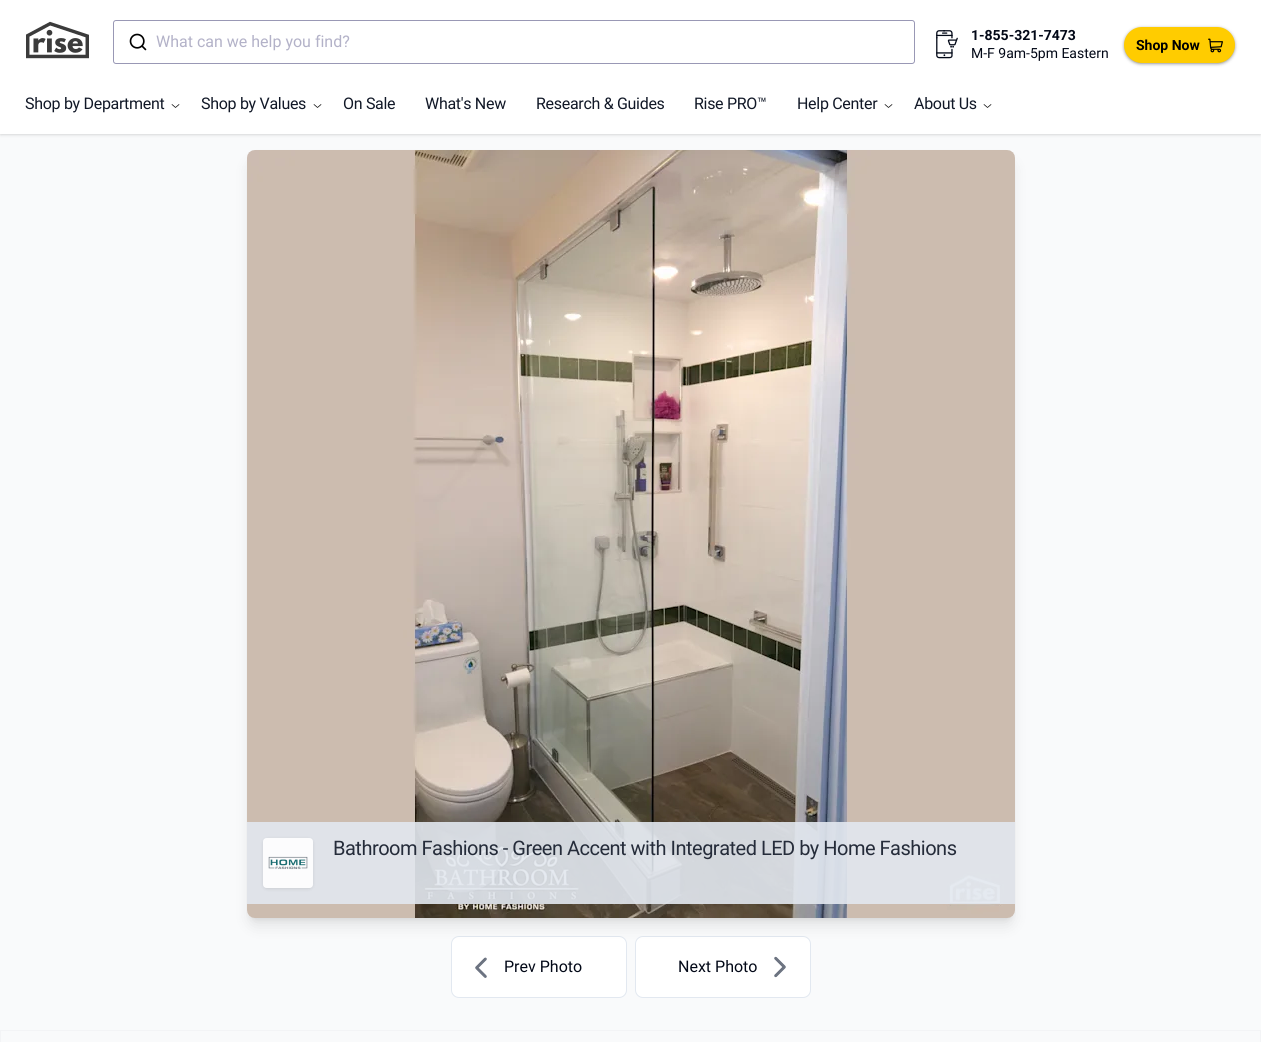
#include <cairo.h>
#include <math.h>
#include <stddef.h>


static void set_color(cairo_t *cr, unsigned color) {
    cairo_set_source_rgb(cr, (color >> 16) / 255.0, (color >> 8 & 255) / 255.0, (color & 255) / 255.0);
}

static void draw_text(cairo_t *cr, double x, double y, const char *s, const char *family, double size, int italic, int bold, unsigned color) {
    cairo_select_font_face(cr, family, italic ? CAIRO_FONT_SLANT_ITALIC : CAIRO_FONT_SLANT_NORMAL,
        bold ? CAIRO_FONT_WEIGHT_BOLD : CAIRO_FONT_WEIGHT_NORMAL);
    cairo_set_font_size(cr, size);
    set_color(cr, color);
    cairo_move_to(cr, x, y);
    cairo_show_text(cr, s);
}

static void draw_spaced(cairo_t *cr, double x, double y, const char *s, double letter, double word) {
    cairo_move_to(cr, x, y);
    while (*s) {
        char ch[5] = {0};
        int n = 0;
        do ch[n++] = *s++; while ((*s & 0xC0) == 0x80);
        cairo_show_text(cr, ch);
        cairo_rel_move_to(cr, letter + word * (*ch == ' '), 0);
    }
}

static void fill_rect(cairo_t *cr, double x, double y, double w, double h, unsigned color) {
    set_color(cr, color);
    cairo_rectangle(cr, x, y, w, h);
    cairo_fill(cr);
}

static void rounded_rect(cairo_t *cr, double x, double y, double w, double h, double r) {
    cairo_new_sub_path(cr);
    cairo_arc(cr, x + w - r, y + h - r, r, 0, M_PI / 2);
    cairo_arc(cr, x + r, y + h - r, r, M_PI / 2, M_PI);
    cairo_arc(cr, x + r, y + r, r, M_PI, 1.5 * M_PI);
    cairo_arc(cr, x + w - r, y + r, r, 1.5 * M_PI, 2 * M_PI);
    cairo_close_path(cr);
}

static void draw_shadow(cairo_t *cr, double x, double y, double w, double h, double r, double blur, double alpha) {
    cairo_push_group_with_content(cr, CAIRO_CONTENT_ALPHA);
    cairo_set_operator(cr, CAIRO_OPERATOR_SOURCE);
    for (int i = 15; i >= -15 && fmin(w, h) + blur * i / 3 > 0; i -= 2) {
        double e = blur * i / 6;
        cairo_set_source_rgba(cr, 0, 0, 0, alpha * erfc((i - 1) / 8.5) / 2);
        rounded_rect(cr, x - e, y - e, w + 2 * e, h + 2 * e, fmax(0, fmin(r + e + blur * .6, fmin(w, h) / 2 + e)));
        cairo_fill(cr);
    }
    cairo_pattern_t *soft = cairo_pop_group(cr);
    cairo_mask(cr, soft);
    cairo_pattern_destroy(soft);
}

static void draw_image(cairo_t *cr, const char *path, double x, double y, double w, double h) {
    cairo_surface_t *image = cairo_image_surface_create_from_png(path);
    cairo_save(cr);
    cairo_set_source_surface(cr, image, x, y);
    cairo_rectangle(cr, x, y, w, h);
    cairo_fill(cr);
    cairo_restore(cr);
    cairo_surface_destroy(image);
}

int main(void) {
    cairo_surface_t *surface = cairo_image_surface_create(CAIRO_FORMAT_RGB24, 1261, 1042);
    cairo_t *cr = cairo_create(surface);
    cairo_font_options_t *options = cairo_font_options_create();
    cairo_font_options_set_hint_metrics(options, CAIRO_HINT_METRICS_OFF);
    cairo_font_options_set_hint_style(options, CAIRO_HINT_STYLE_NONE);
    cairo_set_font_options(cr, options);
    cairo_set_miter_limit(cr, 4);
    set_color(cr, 0xF9FAFB);
    cairo_paint(cr);
    set_color(cr, 0x000000);
    draw_shadow(cr, 1, 2, 1259, 132, 0, 1, 0.1);
    draw_shadow(cr, 0, 1, 1261, 134, 0, 1.5, 0.1);
    fill_rect(cr, 0, 0, 1261, 134, 0xFFFFFF);
    draw_image(cr, "assets/img1.png", 26, 21, 63, 38);
    rounded_rect(cr, 113.5, 20.5, 801, 43, 2.5);
    set_color(cr, 0x9998B5);
    cairo_set_line_width(cr, 1);
    cairo_stroke(cr);
    draw_image(cr, "assets/img2.png", 129, 33, 18, 18);
    draw_text(cr, 156, 47, "What can we help you find?", "Roboto", 16, 0, 0, 0xB3B2C8);
    draw_image(cr, "assets/img3.png", 936, 30, 22, 29);
    draw_text(cr, 971, 40, "1-855-321-7473", "Roboto", 14, 0, 1, 0x020817);
    draw_text(cr, 971, 58, "M-F 9am-5pm Eastern", "Roboto", 14, 0, 0, 0x020817);
    set_color(cr, 0x000000);
    draw_shadow(cr, 1125, 29, 109, 34, 17, 2, 0.64);
    set_color(cr, 0xFFCC00);
    rounded_rect(cr, 1124, 27, 111, 36, 18);
    cairo_fill(cr);
    draw_text(cr, 1136, 50, "Shop Now", "Roboto", 14, 0, 1, 0x000000);
    draw_image(cr, "assets/img4.png", 1208, 38, 15, 15);
    cairo_select_font_face(cr, "Roboto", CAIRO_FONT_SLANT_NORMAL, CAIRO_FONT_WEIGHT_NORMAL);
    cairo_set_font_size(cr, 16);
    set_color(cr, 0x111827);
    draw_spaced(cr, 25, 109, "Shop by Department", -0.3, 0);
    cairo_new_path(cr);
    cairo_move_to(cr, 179, 104.5);
    cairo_line_to(cr, 175.5, 107.5);
    cairo_line_to(cr, 172, 104.5);
    set_color(cr, 0x000000);
    cairo_set_line_width(cr, 0.7);
    cairo_set_line_cap(cr, CAIRO_LINE_CAP_ROUND);
    cairo_set_line_join(cr, CAIRO_LINE_JOIN_ROUND);
    cairo_stroke(cr);
    set_color(cr, 0x111827);
    draw_spaced(cr, 201, 109, "Shop by Values", -0.3, 0);
    cairo_new_path(cr);
    cairo_move_to(cr, 321, 104.5);
    cairo_line_to(cr, 317.5, 107.5);
    cairo_line_to(cr, 314, 104.5);
    set_color(cr, 0x000000);
    cairo_stroke(cr);
    set_color(cr, 0x111827);
    draw_spaced(cr, 343, 109, "On Sale", -0.3, 0);
    draw_spaced(cr, 425, 109, "What's New", -0.3, 0);
    draw_spaced(cr, 536, 109, "Research & Guides", -0.3, 0);
    draw_spaced(cr, 694, 109, "Rise PRO™", -0.3, 0);
    draw_spaced(cr, 797, 109, "Help Center", -0.3, 0);
    cairo_new_path(cr);
    cairo_move_to(cr, 892, 104.5);
    cairo_line_to(cr, 888.5, 107.5);
    cairo_line_to(cr, 885, 104.5);
    set_color(cr, 0x000000);
    cairo_stroke(cr);
    set_color(cr, 0x111827);
    draw_spaced(cr, 914, 109, "About Us", -0.3, 0);
    cairo_new_path(cr);
    cairo_move_to(cr, 991, 104.5);
    cairo_line_to(cr, 987.5, 107.5);
    cairo_line_to(cr, 984, 104.5);
    set_color(cr, 0x000000);
    cairo_stroke(cr);
    set_color(cr, 0x000000);
    draw_shadow(cr, 251, 158, 760, 760, 4, 3, 0.1);
    set_color(cr, 0xFFFFFF);
    rounded_rect(cr, 451.5, 936.5, 175, 61, 7.5);
    cairo_fill_preserve(cr);
    set_color(cr, 0xE2E8F0);
    cairo_set_line_width(cr, 1);
    cairo_set_line_cap(cr, CAIRO_LINE_CAP_BUTT);
    cairo_set_line_join(cr, CAIRO_LINE_JOIN_MITER);
    cairo_stroke(cr);
    set_color(cr, 0xFFFFFF);
    rounded_rect(cr, 635.5, 936.5, 175, 61, 7.5);
    cairo_fill_preserve(cr);
    set_color(cr, 0xE2E8F0);
    cairo_stroke(cr);
    set_color(cr, 0x000000);
    draw_shadow(cr, 250, 163, 762, 762, 5, 7.5, 0.1);
    draw_image(cr, "assets/img5.png", 247, 150, 768, 768);
    cairo_set_source_rgba(cr, 0.886, 0.91, 0.941, 0.9);
    cairo_rectangle(cr, 247, 822, 768, 82);
    cairo_fill(cr);
    cairo_save(cr);
    cairo_set_fill_rule(cr, CAIRO_FILL_RULE_EVEN_ODD);
    cairo_new_path(cr);
    cairo_move_to(cr, 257, 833);
    cairo_line_to(cr, 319, 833);
    cairo_line_to(cr, 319, 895);
    cairo_line_to(cr, 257, 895);
    cairo_close_path(cr);
    cairo_move_to(cr, 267, 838);
    cairo_line_to(cr, 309, 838);
    cairo_curve_to(cr, 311, 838, 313, 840, 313, 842);
    cairo_line_to(cr, 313, 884);
    cairo_curve_to(cr, 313, 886, 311, 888, 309, 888);
    cairo_line_to(cr, 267, 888);
    cairo_curve_to(cr, 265, 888, 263, 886, 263, 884);
    cairo_line_to(cr, 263, 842);
    cairo_curve_to(cr, 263, 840, 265, 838, 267, 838);
    cairo_close_path(cr);
    cairo_clip(cr);
    set_color(cr, 0x141312);
    draw_shadow(cr, 263, 839, 50, 50, 4, 1.5, 0.1);
    cairo_restore(cr);
    draw_image(cr, "assets/img6.png", 263, 838, 50, 50);
    cairo_set_font_size(cr, 20);
    set_color(cr, 0x252C3A);
    draw_spaced(cr, 333, 855, "Bathroom Fashions - Green Accent with Integrated LED by Home Fashions", -0.5, 0);
    draw_image(cr, "assets/img7.png", 475, 957, 12, 21);
    draw_text(cr, 504, 972, "Prev Photo", "Roboto", 16, 0, 0, 0x020817);
    draw_text(cr, 678, 972, "Next Photo", "Roboto", 16, 0, 0, 0x020817);
    draw_image(cr, "assets/img8.png", 774, 956, 12, 22);
    cairo_rectangle(cr, 0.5, 1030.5, 1260, 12);
    set_color(cr, 0xF3F4F6);
    cairo_stroke(cr);
    cairo_surface_write_to_png(surface, "output.png");
    cairo_font_options_destroy(options);
    cairo_destroy(cr);
    cairo_surface_destroy(surface);
    return 0;
}
